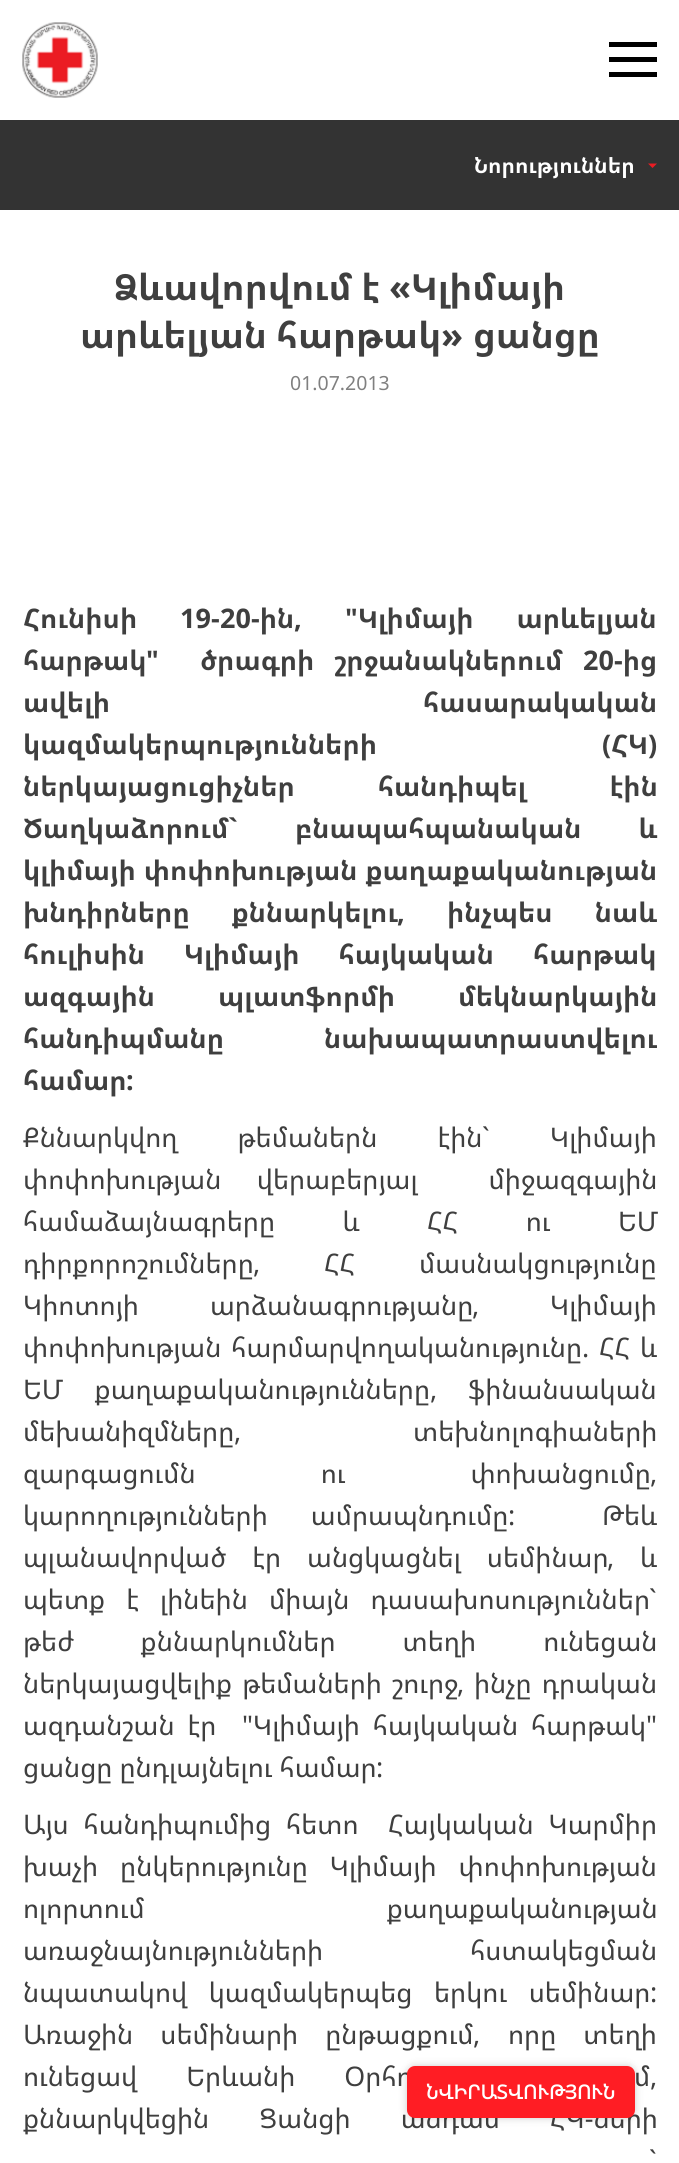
#include <cairo.h>
#include <math.h>
#include <stddef.h>


static void set_color(cairo_t *cr, unsigned color) {
    cairo_set_source_rgb(cr, (color >> 16) / 255.0, (color >> 8 & 255) / 255.0, (color & 255) / 255.0);
}

static void draw_text(cairo_t *cr, double x, double y, const char *s, const char *family, double size, int italic, int bold, unsigned color) {
    cairo_select_font_face(cr, family, italic ? CAIRO_FONT_SLANT_ITALIC : CAIRO_FONT_SLANT_NORMAL,
        bold ? CAIRO_FONT_WEIGHT_BOLD : CAIRO_FONT_WEIGHT_NORMAL);
    cairo_set_font_size(cr, size);
    set_color(cr, color);
    cairo_move_to(cr, x, y);
    cairo_show_text(cr, s);
}

static void draw_spaced(cairo_t *cr, double x, double y, const char *s, double letter, double word) {
    cairo_move_to(cr, x, y);
    while (*s) {
        char ch[5] = {0};
        int n = 0;
        do ch[n++] = *s++; while ((*s & 0xC0) == 0x80);
        cairo_show_text(cr, ch);
        cairo_rel_move_to(cr, letter + word * (*ch == ' '), 0);
    }
}

static void fill_rect(cairo_t *cr, double x, double y, double w, double h, unsigned color) {
    set_color(cr, color);
    cairo_rectangle(cr, x, y, w, h);
    cairo_fill(cr);
}

static void rounded_rect(cairo_t *cr, double x, double y, double w, double h, double r) {
    cairo_new_sub_path(cr);
    cairo_arc(cr, x + w - r, y + h - r, r, 0, M_PI / 2);
    cairo_arc(cr, x + r, y + h - r, r, M_PI / 2, M_PI);
    cairo_arc(cr, x + r, y + r, r, M_PI, 1.5 * M_PI);
    cairo_arc(cr, x + w - r, y + r, r, 1.5 * M_PI, 2 * M_PI);
    cairo_close_path(cr);
}

static void draw_shadow(cairo_t *cr, double x, double y, double w, double h, double r, double blur, double alpha) {
    cairo_push_group_with_content(cr, CAIRO_CONTENT_ALPHA);
    cairo_set_operator(cr, CAIRO_OPERATOR_SOURCE);
    for (int i = 15; i >= -15 && fmin(w, h) + blur * i / 3 > 0; i -= 2) {
        double e = blur * i / 6;
        cairo_set_source_rgba(cr, 0, 0, 0, alpha * erfc((i - 1) / 8.5) / 2);
        rounded_rect(cr, x - e, y - e, w + 2 * e, h + 2 * e, fmax(0, fmin(r + e + blur * .6, fmin(w, h) / 2 + e)));
        cairo_fill(cr);
    }
    cairo_pattern_t *soft = cairo_pop_group(cr);
    cairo_mask(cr, soft);
    cairo_pattern_destroy(soft);
}

static void draw_image(cairo_t *cr, const char *path, double x, double y, double w, double h) {
    cairo_surface_t *image = cairo_image_surface_create_from_png(path);
    cairo_save(cr);
    cairo_set_source_surface(cr, image, x, y);
    cairo_rectangle(cr, x, y, w, h);
    cairo_fill(cr);
    cairo_restore(cr);
    cairo_surface_destroy(image);
}

int main(void) {
    cairo_surface_t *surface = cairo_image_surface_create(CAIRO_FORMAT_RGB24, 679, 2163);
    cairo_t *cr = cairo_create(surface);
    cairo_font_options_t *options = cairo_font_options_create();
    cairo_font_options_set_hint_metrics(options, CAIRO_HINT_METRICS_OFF);
    cairo_font_options_set_hint_style(options, CAIRO_HINT_STYLE_NONE);
    cairo_set_font_options(cr, options);
    cairo_set_miter_limit(cr, 4);
    set_color(cr, 0xFFFFFF);
    cairo_paint(cr);
    draw_image(cr, "assets/img1.png", 22, 22, 76, 76);
    fill_rect(cr, 609, 42, 48, 5, 0x000000);
    fill_rect(cr, 609, 57, 48, 5, 0x000000);
    fill_rect(cr, 609, 72, 48, 5, 0x000000);
    fill_rect(cr, 0, 120, 679, 90, 0x333333);
    draw_text(cr, 474, 173, "Նորություններ", "Noto Sans Armenian", 21, 0, 1, 0xFFFFFF);
    set_color(cr, 0xEB1C23);
    cairo_new_path(cr);
    cairo_move_to(cr, 648, 163.5);
    cairo_line_to(cr, 657, 163.5);
    cairo_line_to(cr, 652.5, 168);
    cairo_close_path(cr);
    cairo_fill(cr);
    draw_text(cr, 114, 300, "Ձևավորվում է", "Noto Sans Armenian", 36, 0, 1, 0x3F3F3F);
    draw_text(cr, 389, 300, "«", "Noto Sans", 36, 0, 1, 0x3F3F3F);
    draw_text(cr, 411, 300, "Կլիմայի", "Noto Sans Armenian", 36, 0, 1, 0x3F3F3F);
    draw_text(cr, 80, 348, "արևելյան հարթակ", "Noto Sans Armenian", 36, 0, 1, 0x3F3F3F);
    draw_text(cr, 441, 348, "»", "Noto Sans", 36, 0, 1, 0x3F3F3F);
    draw_text(cr, 473, 348, "ցանցը", "Noto Sans Armenian", 36, 0, 1, 0x3F3F3F);
    draw_text(cr, 290, 390, "01.07.2013", "Noto Sans", 19.5, 0, 0, 0x808080);
    draw_text(cr, 23, 628, "Հունիսի", "Noto Sans Armenian", 27, 0, 1, 0x3F3F3F);
    draw_text(cr, 180, 628, "19", "Noto Sans", 27, 0, 1, 0x3F3F3F);
    draw_text(cr, 220, 628, "20", "Noto Sans", 27, 0, 1, 0x3F3F3F);
    draw_text(cr, 251, 628, "-ին", "Noto Sans Armenian", 27, 0, 1, 0x3F3F3F);
    draw_text(cr, 345, 628, "\"", "Noto Sans", 27, 0, 1, 0x3F3F3F);
    cairo_select_font_face(cr, "Noto Sans Armenian", CAIRO_FONT_SLANT_NORMAL, CAIRO_FONT_WEIGHT_BOLD);
    draw_spaced(cr, 358, 628, "Կլիմայի արևելյան", 0, 36);
    draw_text(cr, 211, 628, "-", "Noto Sans Armenian", 27, 0, 1, 0x3F3F3F);
    draw_text(cr, 294, 628, ",", "Noto Sans", 27, 0, 1, 0x3F3F3F);
    draw_text(cr, 23, 670, "հարթակ", "Noto Sans Armenian", 27, 0, 1, 0x3F3F3F);
    draw_text(cr, 146, 670, "\"", "Noto Sans", 27, 0, 1, 0x3F3F3F);
    cairo_select_font_face(cr, "Noto Sans Armenian", CAIRO_FONT_SLANT_NORMAL, CAIRO_FONT_WEIGHT_BOLD);
    draw_spaced(cr, 200, 670, "ծրագրի շրջանակներում", 0, 13);
    draw_text(cr, 583, 670, "20", "Noto Sans", 27, 0, 1, 0x3F3F3F);
    draw_text(cr, 614, 670, "-ից", "Noto Sans Armenian", 27, 0, 1, 0x3F3F3F);
    draw_spaced(cr, 23, 712, "ավելի հասարակական", 0, 306);
    draw_text(cr, 23, 754, "կազմակերպությունների", "Noto Sans Armenian", 27, 0, 1, 0x3F3F3F);
    draw_text(cr, 602, 754, "(", "Noto Sans", 27, 0, 1, 0x3F3F3F);
    draw_text(cr, 611, 754, "ՀԿ", "Noto Sans Armenian", 27, 0, 1, 0x3F3F3F);
    draw_text(cr, 648, 754, ")", "Noto Sans", 27, 0, 1, 0x3F3F3F);
    cairo_select_font_face(cr, "Noto Sans Armenian", CAIRO_FONT_SLANT_NORMAL, CAIRO_FONT_WEIGHT_BOLD);
    draw_spaced(cr, 23, 796, "ներկայացուցիչներ հանդիպել էին", 0, 76);
    draw_text(cr, 23, 838, "Ծաղկաձորում", "Noto Sans Armenian", 27, 0, 1, 0x3F3F3F);
    draw_text(cr, 228, 838, "`", "Noto Sans", 27, 0, 1, 0x3F3F3F);
    cairo_select_font_face(cr, "Noto Sans Armenian", CAIRO_FONT_SLANT_NORMAL, CAIRO_FONT_WEIGHT_BOLD);
    draw_spaced(cr, 295, 838, "բնապահպանական և", 0, 50);
    draw_spaced(cr, 23, 880, "կլիմայի փոփոխության քաղաքականության", 0, 1);
    draw_spaced(cr, 23, 922, "խնդիրները քննարկելու", 0, 35);
    draw_text(cr, 397, 922, ",", "Noto Sans", 27, 0, 1, 0x3F3F3F);
    cairo_select_font_face(cr, "Noto Sans Armenian", CAIRO_FONT_SLANT_NORMAL, CAIRO_FONT_WEIGHT_BOLD);
    draw_spaced(cr, 447, 922, "ինչպես նաև", 0, 35);
    draw_spaced(cr, 23, 964, "հուլիսին Կլիմայի հայկական հարթակ", 0, 32);
    draw_spaced(cr, 23, 1006, "ազգային պլատֆորմի մեկնարկային", 0, 56);
    draw_spaced(cr, 23, 1048, "հանդիպմանը նախապատրաստվելու", 0, 93);
    draw_text(cr, 23, 1090, "համար", "Noto Sans Armenian", 27, 0, 1, 0x3F3F3F);
    draw_text(cr, 126, 1090, ":", "Noto Sans", 27, 0, 1, 0x3F3F3F);
    cairo_select_font_face(cr, "Noto Sans Armenian", CAIRO_FONT_SLANT_NORMAL, CAIRO_FONT_WEIGHT_NORMAL);
    draw_spaced(cr, 23, 1147, "Քննարկվող թեմաներն էին", 0, 53);
    draw_text(cr, 482, 1147, "`", "Noto Sans", 27, 0, 0, 0x3F3F3F);
    draw_text(cr, 550, 1147, "Կլիմայի", "Noto Sans Armenian", 27, 0, 0, 0x3F3F3F);
    draw_spaced(cr, 23, 1189, "փոփոխության վերաբերյալ  միջազգային", 0, 28.5);
    draw_spaced(cr, 23, 1231, "համաձայնագրերը և ՀՀ ու ԵՄ", 0, 60.5);
    draw_text(cr, 23, 1273, "դիրքորոշումները", "Noto Sans Armenian", 27, 0, 0, 0x3F3F3F);
    draw_text(cr, 253, 1273, ",", "Noto Sans", 27, 0, 0, 0x3F3F3F);
    cairo_select_font_face(cr, "Noto Sans Armenian", CAIRO_FONT_SLANT_NORMAL, CAIRO_FONT_WEIGHT_NORMAL);
    draw_spaced(cr, 324, 1273, "ՀՀ մասնակցությունը", 0, 57);
    draw_spaced(cr, 23, 1315, "Կիոտոյի արձանագրությանը", 0, 64);
    draw_text(cr, 472, 1315, ",", "Noto Sans", 27, 0, 0, 0x3F3F3F);
    draw_text(cr, 550, 1315, "Կլիմայի", "Noto Sans Armenian", 27, 0, 0, 0x3F3F3F);
    draw_spaced(cr, 23, 1357, "փոփոխության հարմարվողականությունը", 0, 3);
    draw_text(cr, 582, 1357, ".", "Noto Sans", 27, 0, 0, 0x3F3F3F);
    cairo_select_font_face(cr, "Noto Sans Armenian", CAIRO_FONT_SLANT_NORMAL, CAIRO_FONT_WEIGHT_NORMAL);
    draw_spaced(cr, 599, 1357, "ՀՀ և", 0, 3);
    draw_spaced(cr, 23, 1399, "ԵՄ քաղաքականությունները", 0, 24);
    draw_text(cr, 430, 1399, ",", "Noto Sans", 27, 0, 0, 0x3F3F3F);
    draw_text(cr, 468, 1399, "ֆինանսական", "Noto Sans Armenian", 27, 0, 0, 0x3F3F3F);
    draw_text(cr, 23, 1441, "մեխանիզմները", "Noto Sans Armenian", 27, 0, 0, 0x3F3F3F);
    draw_text(cr, 234, 1441, ",", "Noto Sans", 27, 0, 0, 0x3F3F3F);
    draw_text(cr, 413, 1441, "տեխնոլոգիաների", "Noto Sans Armenian", 27, 0, 0, 0x3F3F3F);
    draw_spaced(cr, 23, 1483, "զարգացումն ու փոխանցումը", 0, 118);
    draw_text(cr, 650, 1483, ",", "Noto Sans", 27, 0, 0, 0x3F3F3F);
    cairo_select_font_face(cr, "Noto Sans Armenian", CAIRO_FONT_SLANT_NORMAL, CAIRO_FONT_WEIGHT_NORMAL);
    draw_spaced(cr, 23, 1525, "կարողությունների ամրապնդումը", 0, 36);
    draw_text(cr, 508, 1525, ":", "Noto Sans", 27, 0, 0, 0x3F3F3F);
    draw_text(cr, 602, 1525, "Թեև", "Noto Sans Armenian", 27, 0, 0, 0x3F3F3F);
    draw_spaced(cr, 23, 1567, "պլանավորված էր անցկացնել սեմինար", 0, 19);
    draw_text(cr, 607, 1567, ",", "Noto Sans", 27, 0, 0, 0x3F3F3F);
    draw_text(cr, 640, 1567, "և", "Noto Sans Armenian", 27, 0, 0, 0x3F3F3F);
    draw_spaced(cr, 23, 1609, "պետք է լինեին միայն դասախոսություններ", 0, 14);
    draw_text(cr, 649, 1609, "`", "Noto Sans", 27, 0, 0, 0x3F3F3F);
    cairo_select_font_face(cr, "Noto Sans Armenian", CAIRO_FONT_SLANT_NORMAL, CAIRO_FONT_WEIGHT_NORMAL);
    draw_spaced(cr, 23, 1651, "թեժ քննարկումներ տեղի ունեցան", 0, 60);
    draw_spaced(cr, 23, 1693, "ներկայացվելիք թեմաների շուրջ", 0, 3);
    draw_text(cr, 457, 1693, ",", "Noto Sans", 27, 0, 0, 0x3F3F3F);
    cairo_select_font_face(cr, "Noto Sans Armenian", CAIRO_FONT_SLANT_NORMAL, CAIRO_FONT_WEIGHT_NORMAL);
    draw_spaced(cr, 474, 1693, "ինչը դրական", 0, 3);
    draw_spaced(cr, 23, 1735, "ազդանշան էր", 0, 6);
    draw_text(cr, 242, 1735, "\"", "Noto Sans", 27, 0, 0, 0x3F3F3F);
    cairo_select_font_face(cr, "Noto Sans Armenian", CAIRO_FONT_SLANT_NORMAL, CAIRO_FONT_WEIGHT_NORMAL);
    draw_spaced(cr, 253, 1735, "Կլիմայի հայկական հարթակ", 0, 6);
    draw_text(cr, 646, 1735, "\"", "Noto Sans", 27, 0, 0, 0x3F3F3F);
    draw_text(cr, 23, 1777, "ցանցը ընդլայնելու համար", "Noto Sans Armenian", 27, 0, 0, 0x3F3F3F);
    draw_text(cr, 376, 1777, ":", "Noto Sans", 27, 0, 0, 0x3F3F3F);
    cairo_select_font_face(cr, "Noto Sans Armenian", CAIRO_FONT_SLANT_NORMAL, CAIRO_FONT_WEIGHT_NORMAL);
    draw_spaced(cr, 23, 1834, "Այս հանդիպումից հետո  Հայկական Կարմիր", 0, 7.75);
    draw_spaced(cr, 23, 1876, "խաչի ընկերությունը Կլիմայի փոփոխության", 0, 15);
    draw_spaced(cr, 23, 1918, "ոլորտում  քաղաքականության", 0, 114);
    draw_spaced(cr, 23, 1960, "առաջնայնությունների հստակեցման", 0, 140);
    draw_spaced(cr, 23, 2002, "նպատակով կազմակերպեց երկու սեմինար", 0, 14.5);
    draw_text(cr, 650, 2002, ":", "Noto Sans", 27, 0, 0, 0x3F3F3F);
    cairo_select_font_face(cr, "Noto Sans Armenian", CAIRO_FONT_SLANT_NORMAL, CAIRO_FONT_WEIGHT_NORMAL);
    draw_spaced(cr, 23, 2044, "Առաջին սեմինարի ընթացքում", 0, 20);
    draw_text(cr, 473, 2044, ",", "Noto Sans", 27, 0, 0, 0x3F3F3F);
    cairo_select_font_face(cr, "Noto Sans Armenian", CAIRO_FONT_SLANT_NORMAL, CAIRO_FONT_WEIGHT_NORMAL);
    draw_spaced(cr, 508, 2044, "որը տեղի", 0, 20);
    draw_spaced(cr, 23, 2086, "ունեցավ Երևանի Օրհո", 0, 42);
    draw_spaced(cr, 634, 2086, "մ", 0, 42);
    draw_text(cr, 650, 2086, ",", "Noto Sans", 27, 0, 0, 0x3F3F3F);
    cairo_select_font_face(cr, "Noto Sans Armenian", CAIRO_FONT_SLANT_NORMAL, CAIRO_FONT_WEIGHT_NORMAL);
    draw_spaced(cr, 23, 2128, "քննարկվեցին Ցանցի անդամ ՀԿ-ների", 0, 43);
    draw_text(cr, 649, 2170, "`", "Noto Sans", 27, 0, 0, 0x3F3F3F);
    set_color(cr, 0x000000);
    draw_shadow(cr, 407, 2066, 228, 52, 8, 4, 0.2);
    set_color(cr, 0xFF1D24);
    rounded_rect(cr, 407, 2066, 228, 52, 8);
    cairo_fill(cr);
    draw_text(cr, 426, 2099, "ՆՎԻՐԱՏՎՈՒԹՅՈՒՆ", "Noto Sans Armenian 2", 19.5, 0, 1, 0xFFFFFF);
    cairo_surface_write_to_png(surface, "output.png");
    cairo_font_options_destroy(options);
    cairo_destroy(cr);
    cairo_surface_destroy(surface);
    return 0;
}
